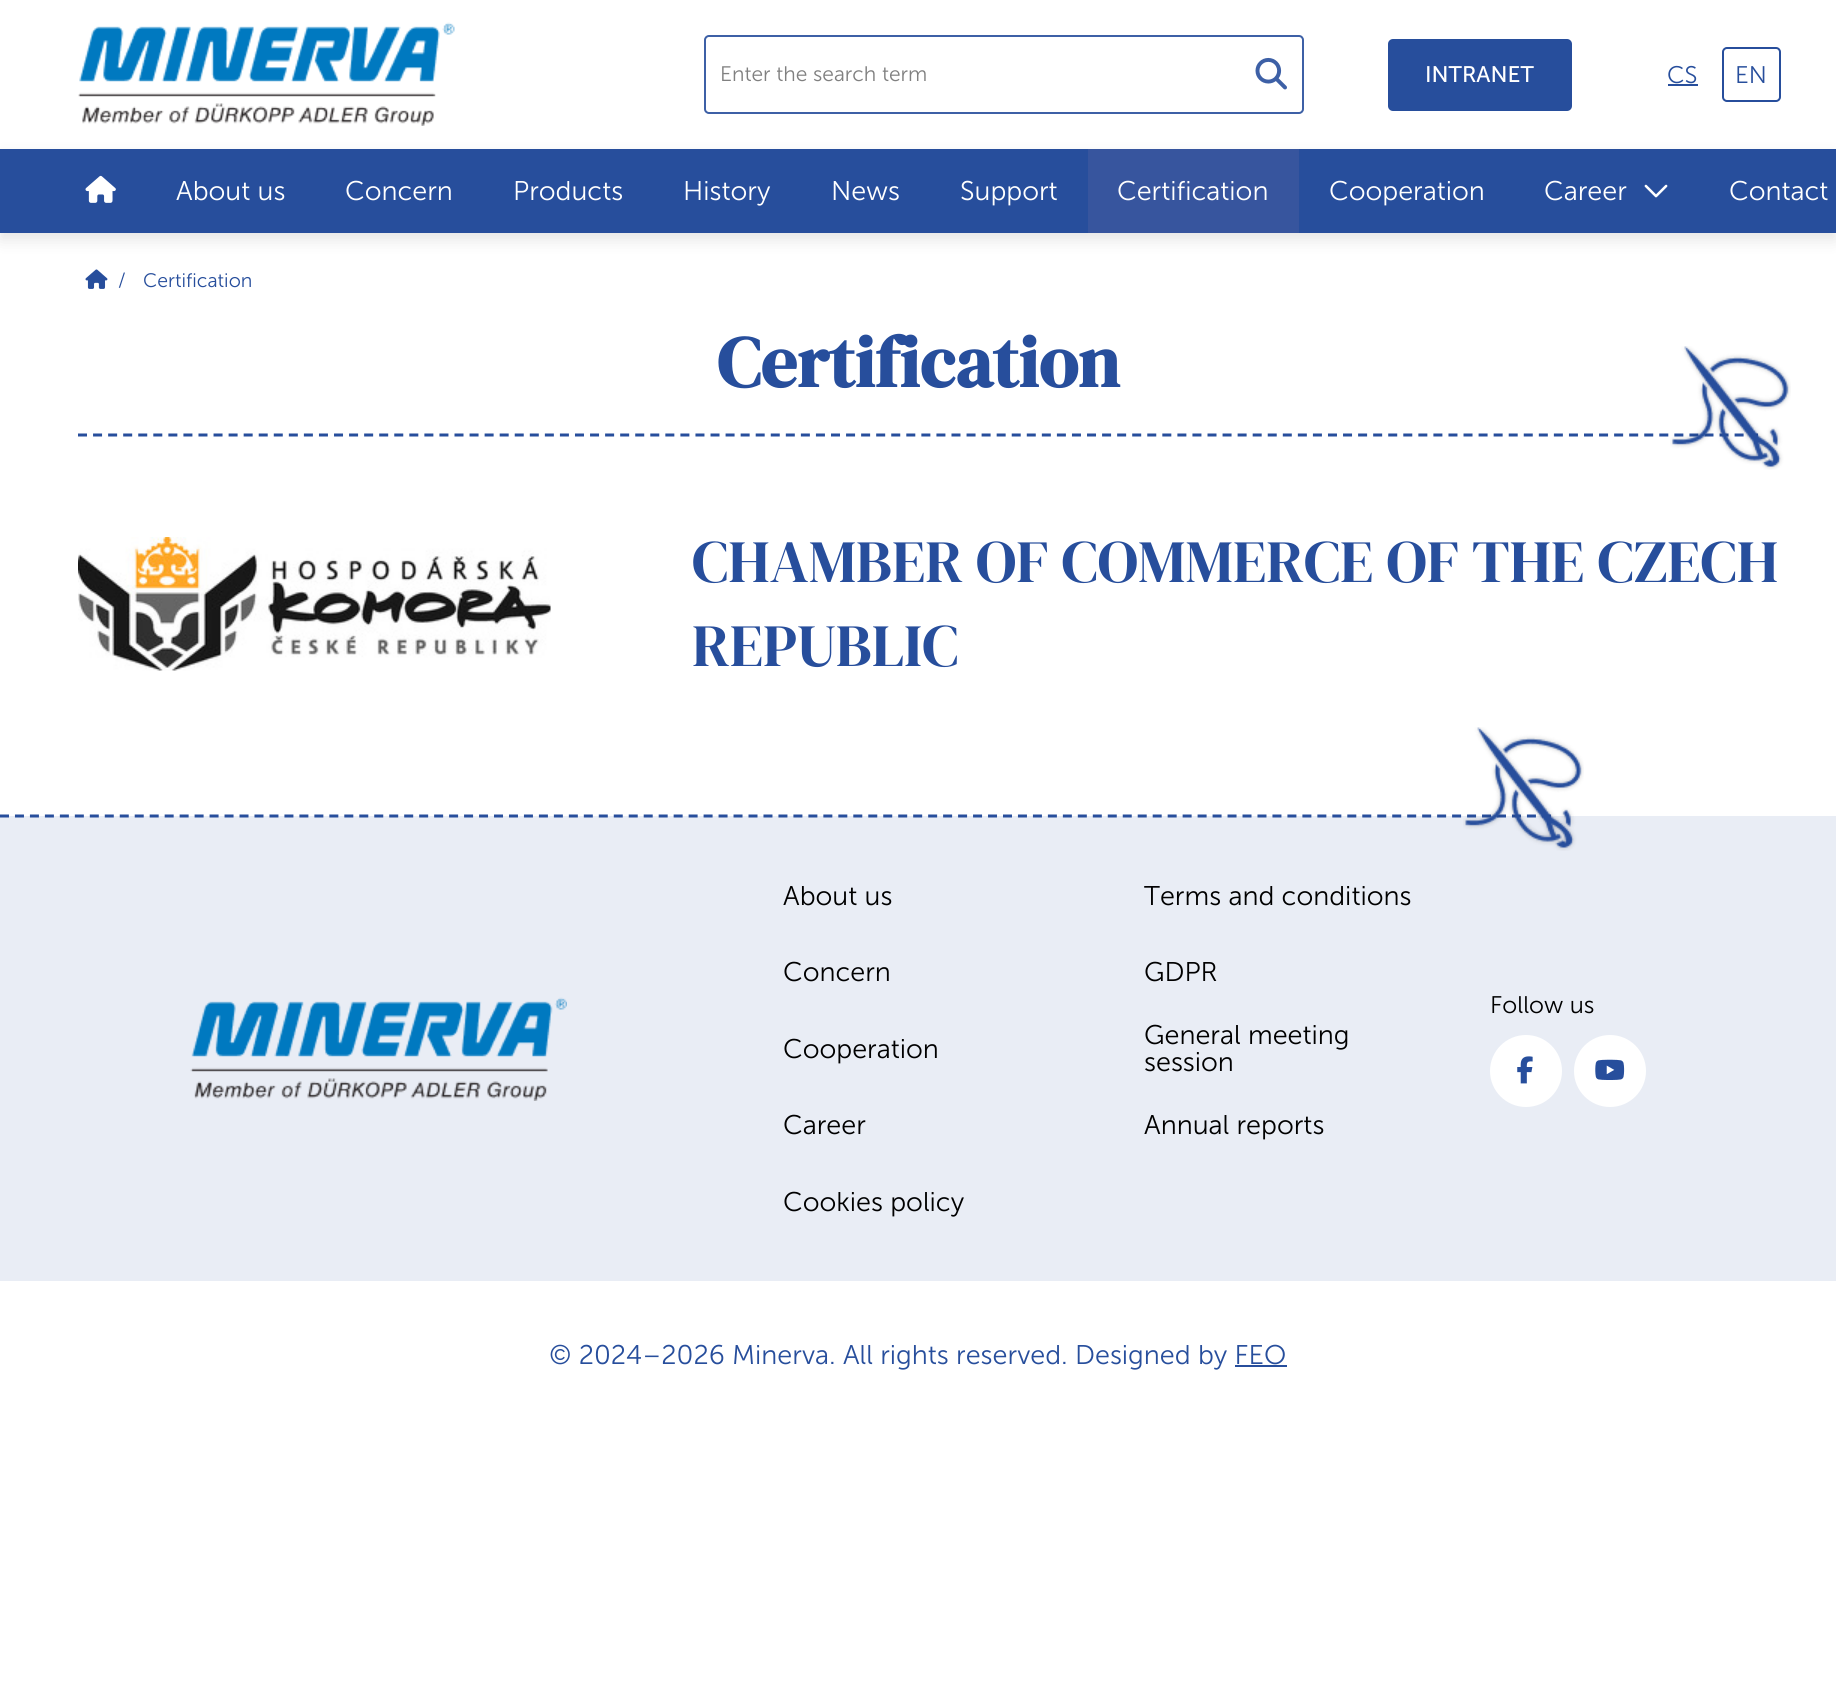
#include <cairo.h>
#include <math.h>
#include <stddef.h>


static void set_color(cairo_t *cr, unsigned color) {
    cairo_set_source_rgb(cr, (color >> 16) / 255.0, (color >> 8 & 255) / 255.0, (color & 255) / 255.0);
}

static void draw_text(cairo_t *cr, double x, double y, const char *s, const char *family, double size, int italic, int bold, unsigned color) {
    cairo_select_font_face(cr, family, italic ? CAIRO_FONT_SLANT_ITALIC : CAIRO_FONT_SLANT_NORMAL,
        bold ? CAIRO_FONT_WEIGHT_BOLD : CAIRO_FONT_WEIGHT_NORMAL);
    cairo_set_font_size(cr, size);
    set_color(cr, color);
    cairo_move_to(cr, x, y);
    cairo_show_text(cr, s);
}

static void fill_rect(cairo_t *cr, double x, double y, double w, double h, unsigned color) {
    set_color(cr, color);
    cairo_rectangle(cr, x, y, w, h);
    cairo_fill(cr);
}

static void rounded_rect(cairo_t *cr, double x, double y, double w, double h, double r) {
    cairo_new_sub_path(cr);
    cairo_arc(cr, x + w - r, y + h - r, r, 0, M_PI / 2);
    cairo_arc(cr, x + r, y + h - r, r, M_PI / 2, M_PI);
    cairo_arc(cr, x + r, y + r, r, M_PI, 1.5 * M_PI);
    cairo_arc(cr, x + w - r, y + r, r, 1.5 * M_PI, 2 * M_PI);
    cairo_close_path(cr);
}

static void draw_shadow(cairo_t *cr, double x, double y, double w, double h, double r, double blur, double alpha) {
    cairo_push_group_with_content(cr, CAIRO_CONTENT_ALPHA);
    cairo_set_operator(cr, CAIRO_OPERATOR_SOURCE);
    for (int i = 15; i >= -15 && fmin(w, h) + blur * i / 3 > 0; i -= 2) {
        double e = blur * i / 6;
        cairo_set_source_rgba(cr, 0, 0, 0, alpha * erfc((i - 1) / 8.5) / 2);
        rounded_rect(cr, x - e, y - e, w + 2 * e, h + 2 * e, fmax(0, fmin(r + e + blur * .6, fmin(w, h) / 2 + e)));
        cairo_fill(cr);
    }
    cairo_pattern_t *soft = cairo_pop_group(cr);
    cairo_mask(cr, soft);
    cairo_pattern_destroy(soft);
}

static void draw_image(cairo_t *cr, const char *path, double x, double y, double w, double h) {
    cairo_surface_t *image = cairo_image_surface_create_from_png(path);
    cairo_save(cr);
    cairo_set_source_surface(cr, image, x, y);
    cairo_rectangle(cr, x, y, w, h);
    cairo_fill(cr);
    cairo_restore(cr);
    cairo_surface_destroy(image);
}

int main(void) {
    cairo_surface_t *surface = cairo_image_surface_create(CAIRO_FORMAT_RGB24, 1836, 1685);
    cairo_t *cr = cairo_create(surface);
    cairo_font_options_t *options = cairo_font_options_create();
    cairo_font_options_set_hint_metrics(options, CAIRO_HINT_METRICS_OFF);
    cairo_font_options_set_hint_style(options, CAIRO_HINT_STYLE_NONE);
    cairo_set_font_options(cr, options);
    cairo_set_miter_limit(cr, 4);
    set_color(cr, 0xFFFFFF);
    cairo_paint(cr);
    draw_image(cr, "assets/img1.png", 78, 22, 377, 104);
    rounded_rect(cr, 705, 36, 598, 77, 4);
    set_color(cr, 0x3D60A6);
    cairo_stroke(cr);
    draw_text(cr, 720, 81, "Enter the search term", "Museo Sans Light", 21, 0, 0, 0x808080);
    draw_image(cr, "assets/img2.png", 1255, 57, 32, 33);
    set_color(cr, 0x274E9C);
    rounded_rect(cr, 1388, 39, 184, 72, 5);
    cairo_fill(cr);
    draw_text(cr, 1425, 82, "INTRANET", "Museo Sans", 22.5, 0, 0, 0xFFFFFF);
    draw_text(cr, 1667, 83, "CS", "Museo Sans Light", 24, 0, 0, 0x274E9C);
    fill_rect(cr, 1668, 84, 30, 2, 0x274E9C);
    rounded_rect(cr, 1723, 48, 57, 53, 4);
    cairo_stroke(cr);
    draw_text(cr, 1735, 83, "EN", "Museo Sans Light", 24, 0, 0, 0x274E9C);
    set_color(cr, 0x000000);
    draw_shadow(cr, 0, 156, 1836, 84, 0, 7.5, 0.1);
    fill_rect(cr, 0, 149, 1836, 84, 0x274E9C);
    draw_image(cr, "assets/img3.png", 85, 175, 31, 28);
    draw_text(cr, 176, 200, "About us", "Museo Sans Light", 27, 0, 0, 0xFFFFFF);
    draw_text(cr, 345, 200, "Concern", "Museo Sans Light", 27, 0, 0, 0xFFFFFF);
    draw_text(cr, 513, 200, "Products", "Museo Sans Light", 27, 0, 0, 0xFFFFFF);
    draw_text(cr, 683, 200, "History", "Museo Sans Light", 27, 0, 0, 0xFFFFFF);
    draw_text(cr, 831, 200, "News", "Museo Sans Light", 27, 0, 0, 0xFFFFFF);
    draw_text(cr, 960, 200, "Support", "Museo Sans Light", 27, 0, 0, 0xFFFFFF);
    fill_rect(cr, 1088, 149, 211, 84, 0x37559E);
    draw_text(cr, 1117, 200, "Certification", "Museo Sans Light", 27, 0, 0, 0xFFFFFF);
    draw_text(cr, 1329, 200, "Cooperation", "Museo Sans Light", 27, 0, 0, 0xFFFFFF);
    draw_text(cr, 1544, 200, "Career", "Museo Sans Light", 27, 0, 0, 0xFFFFFF);
    draw_image(cr, "assets/img4.png", 1644, 184, 24, 14);
    draw_text(cr, 1729, 200, "Contact", "Museo Sans Light", 27, 0, 0, 0xFFFFFF);
    draw_image(cr, "assets/img5.png", 85, 269, 23, 20);
    draw_text(cr, 118, 287, "/", "Museo Sans Light", 19.5, 0, 0, 0x274E9C);
    draw_text(cr, 143, 287, "Certification", "Museo Sans Light", 19.5, 0, 0, 0x274E9C);
    draw_text(cr, 717, 387, "Certification", "DM Serif Display", 72, 0, 1, 0x274E9C);
    cairo_new_path(cr);
    cairo_move_to(cr, 78, 435);
    cairo_line_to(cr, 1758, 435);
    cairo_set_line_width(cr, 3);
    cairo_set_dash(cr, (double[]){9, 6.06}, 2, 0);
    cairo_stroke(cr);
    draw_image(cr, "assets/img6.png", 1670, 346, 121, 124);
    draw_image(cr, "assets/img7.png", 78, 537, 473, 134);
    draw_text(cr, 692, 582, "CHAMBER OF COMMERCE OF THE CZECH", "DM Serif Display", 60, 0, 0, 0x274E9C);
    draw_text(cr, 692, 666, "REPUBLIC", "DM Serif Display", 60, 0, 0, 0x274E9C);
    fill_rect(cr, 0, 816, 1836, 465, 0xE9EDF5);
    cairo_new_path(cr);
    cairo_move_to(cr, 0, 816);
    cairo_line_to(cr, 1551, 816);
    set_color(cr, 0x274E9C);
    cairo_set_dash(cr, (double[]){9, 5.97}, 2, 0);
    cairo_stroke(cr);
    draw_image(cr, "assets/img8.png", 1463, 727, 121, 124);
    draw_image(cr, "assets/img9.png", 190, 997, 377, 104);
    draw_text(cr, 783, 905, "About us", "Museo Sans Light", 27, 0, 0, 0x000000);
    draw_text(cr, 1144, 905, "Terms and conditions", "Museo Sans Light", 27, 0, 0, 0x000000);
    draw_text(cr, 783, 981, "Concern", "Museo Sans Light", 27, 0, 0, 0x000000);
    draw_text(cr, 1144, 981, "GDPR", "Museo Sans Light", 27, 0, 0, 0x000000);
    draw_text(cr, 783, 1058, "Cooperation", "Museo Sans Light", 27, 0, 0, 0x000000);
    draw_text(cr, 1144, 1044, "General meeting", "Museo Sans Light", 27, 0, 0, 0x000000);
    draw_text(cr, 1144, 1071, "session", "Museo Sans Light", 27, 0, 0, 0x000000);
    draw_text(cr, 783, 1134, "Career", "Museo Sans Light", 27, 0, 0, 0x000000);
    draw_text(cr, 1144, 1134, "Annual reports", "Museo Sans Light", 27, 0, 0, 0x000000);
    draw_text(cr, 783, 1211, "Cookies policy", "Museo Sans Light", 27, 0, 0, 0x000000);
    draw_text(cr, 1490, 1013, "Follow us", "Museo Sans Light", 24, 0, 0, 0x000000);
    set_color(cr, 0xFFFFFF);
    cairo_new_path(cr);
    cairo_arc(cr, 1526, 1071, 36, 0, 2 * M_PI);
    cairo_fill(cr);
    draw_image(cr, "assets/img10.png", 1517, 1056, 16, 28);
    cairo_arc(cr, 1610, 1071, 36, 0, 2 * M_PI);
    cairo_fill(cr);
    draw_image(cr, "assets/img11.png", 1595, 1059, 30, 21);
    draw_text(cr, 549, 1364, "© 2024–2026 Minerva. All rights reserved. Designed by FEO", "Museo Sans Light", 27, 0, 0, 0x274E9C);
    fill_rect(cr, 1235, 1365, 52, 2, 0x274E9C);
    cairo_surface_write_to_png(surface, "output.png");
    cairo_font_options_destroy(options);
    cairo_destroy(cr);
    cairo_surface_destroy(surface);
    return 0;
}
